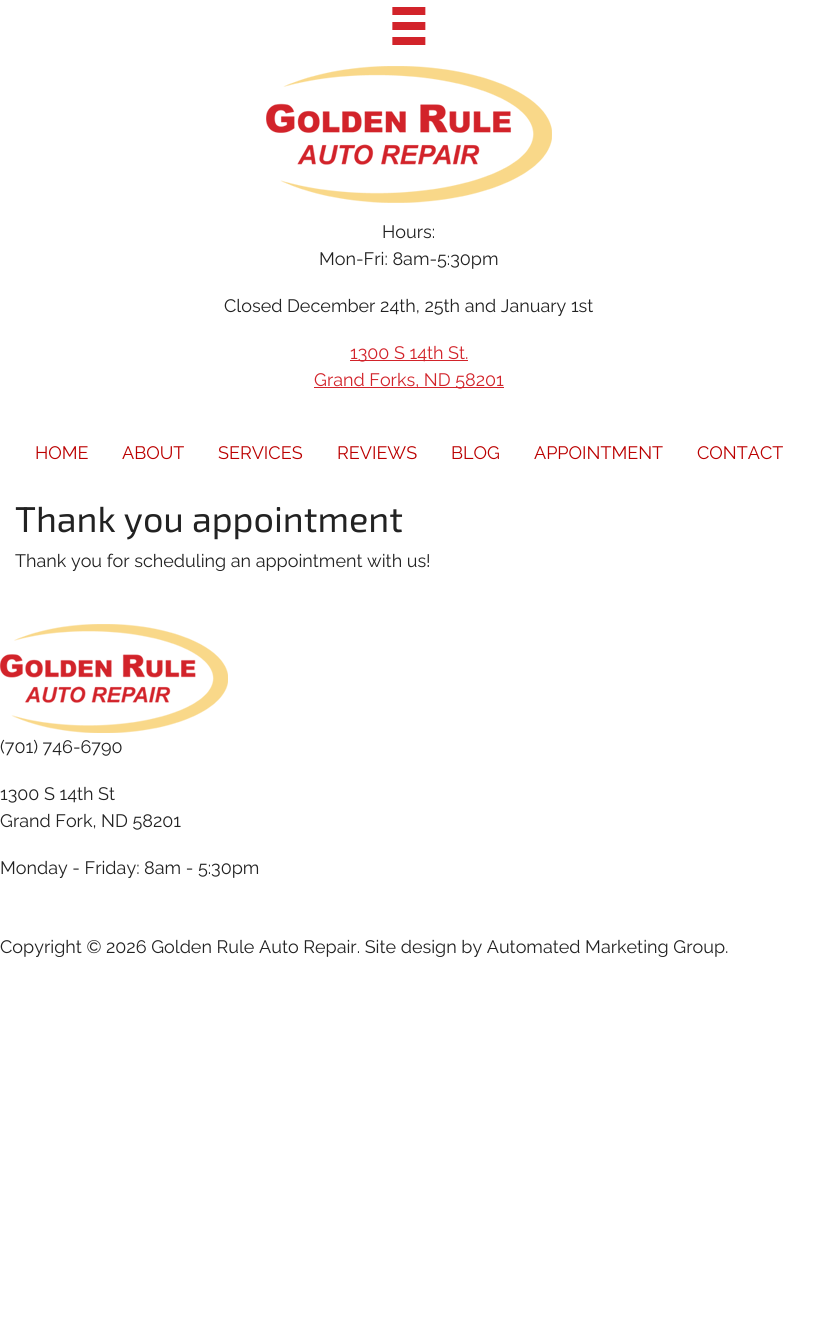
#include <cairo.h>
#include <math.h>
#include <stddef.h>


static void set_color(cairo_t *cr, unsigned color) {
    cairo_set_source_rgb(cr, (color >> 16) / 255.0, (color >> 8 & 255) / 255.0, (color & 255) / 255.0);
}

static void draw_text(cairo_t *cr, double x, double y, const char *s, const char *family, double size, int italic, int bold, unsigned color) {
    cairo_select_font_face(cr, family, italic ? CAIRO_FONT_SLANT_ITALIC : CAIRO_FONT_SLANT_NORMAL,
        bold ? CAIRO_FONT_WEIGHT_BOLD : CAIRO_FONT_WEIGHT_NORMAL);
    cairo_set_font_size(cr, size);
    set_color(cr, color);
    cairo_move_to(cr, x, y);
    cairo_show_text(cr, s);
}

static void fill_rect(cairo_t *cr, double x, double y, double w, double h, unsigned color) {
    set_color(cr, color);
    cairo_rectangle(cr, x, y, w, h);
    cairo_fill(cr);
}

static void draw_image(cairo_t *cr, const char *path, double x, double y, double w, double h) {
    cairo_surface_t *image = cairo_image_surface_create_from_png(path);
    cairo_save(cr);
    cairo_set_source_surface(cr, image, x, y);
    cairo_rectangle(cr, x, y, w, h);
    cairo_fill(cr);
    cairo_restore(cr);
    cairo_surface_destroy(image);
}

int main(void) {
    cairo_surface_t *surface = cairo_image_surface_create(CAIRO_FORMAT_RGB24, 818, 1320);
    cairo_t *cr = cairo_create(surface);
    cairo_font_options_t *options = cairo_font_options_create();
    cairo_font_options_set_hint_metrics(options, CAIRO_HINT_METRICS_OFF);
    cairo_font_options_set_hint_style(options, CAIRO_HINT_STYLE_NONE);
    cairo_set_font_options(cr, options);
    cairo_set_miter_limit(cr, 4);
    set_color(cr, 0xFFFFFF);
    cairo_paint(cr);
    draw_image(cr, "assets/img1.png", 392, 7, 34, 38);
    draw_image(cr, "assets/img2.png", 266, 66, 286, 137);
    draw_text(cr, 382, 238, "Hours:", "Raleway", 18, 0, 0, 0x222222);
    draw_text(cr, 319, 265, "Mon-Fri: 8am-5:30pm", "Raleway", 18, 0, 0, 0x222222);
    draw_text(cr, 224, 312, "Closed December 24th, 25th and January 1st", "Raleway", 18, 0, 0, 0x222222);
    fill_rect(cr, 350, 360, 118, 1, 0xD2232A);
    draw_text(cr, 350, 359, "1300 S 14th St.", "Raleway", 18, 0, 0, 0xD2232A);
    fill_rect(cr, 314, 387, 190, 1, 0xD2232A);
    draw_text(cr, 314, 386, "Grand Forks, ND 58201", "Raleway", 18, 0, 0, 0xD2232A);
    draw_text(cr, 35, 459, "HOME", "Raleway", 18, 0, 0, 0xBB0000);
    draw_text(cr, 122, 459, "ABOUT", "Raleway", 18, 0, 0, 0xBB0000);
    draw_text(cr, 218, 459, "SERVICES", "Raleway", 18, 0, 0, 0xBB0000);
    draw_text(cr, 337, 459, "REVIEWS", "Raleway", 18, 0, 0, 0xBB0000);
    draw_text(cr, 451, 459, "BLOG", "Raleway", 18, 0, 0, 0xBB0000);
    draw_text(cr, 534, 459, "APPOINTMENT", "Raleway", 18, 0, 0, 0xBB0000);
    draw_text(cr, 697, 459, "CONTACT", "Raleway", 18, 0, 0, 0xBB0000);
    draw_text(cr, 15, 532, "Thank you appointment", "Exo 2", 36, 0, 0, 0x222222);
    draw_text(cr, 15, 567, "Thank you for scheduling an appointment with us!", "Raleway", 18, 0, 0, 0x222222);
    draw_image(cr, "assets/img3.png", 0, 624, 228, 109);
    draw_text(cr, 0, 753, "(701) 746-6790", "Raleway", 18, 0, 0, 0x222222);
    draw_text(cr, 0, 800, "1300 S 14th St", "Raleway", 18, 0, 0, 0x222222);
    draw_text(cr, 0, 827, "Grand Fork, ND 58201", "Raleway", 18, 0, 0, 0x222222);
    draw_text(cr, 0, 874, "Monday - Friday: 8am - 5:30pm", "Raleway", 18, 0, 0, 0x222222);
    draw_text(cr, 0, 953, "Copyright © 2026 Golden Rule Auto Repair. Site design by Automated Marketing Group.", "Raleway", 18, 0, 0, 0x222222);
    cairo_surface_write_to_png(surface, "output.png");
    cairo_font_options_destroy(options);
    cairo_destroy(cr);
    cairo_surface_destroy(surface);
    return 0;
}
